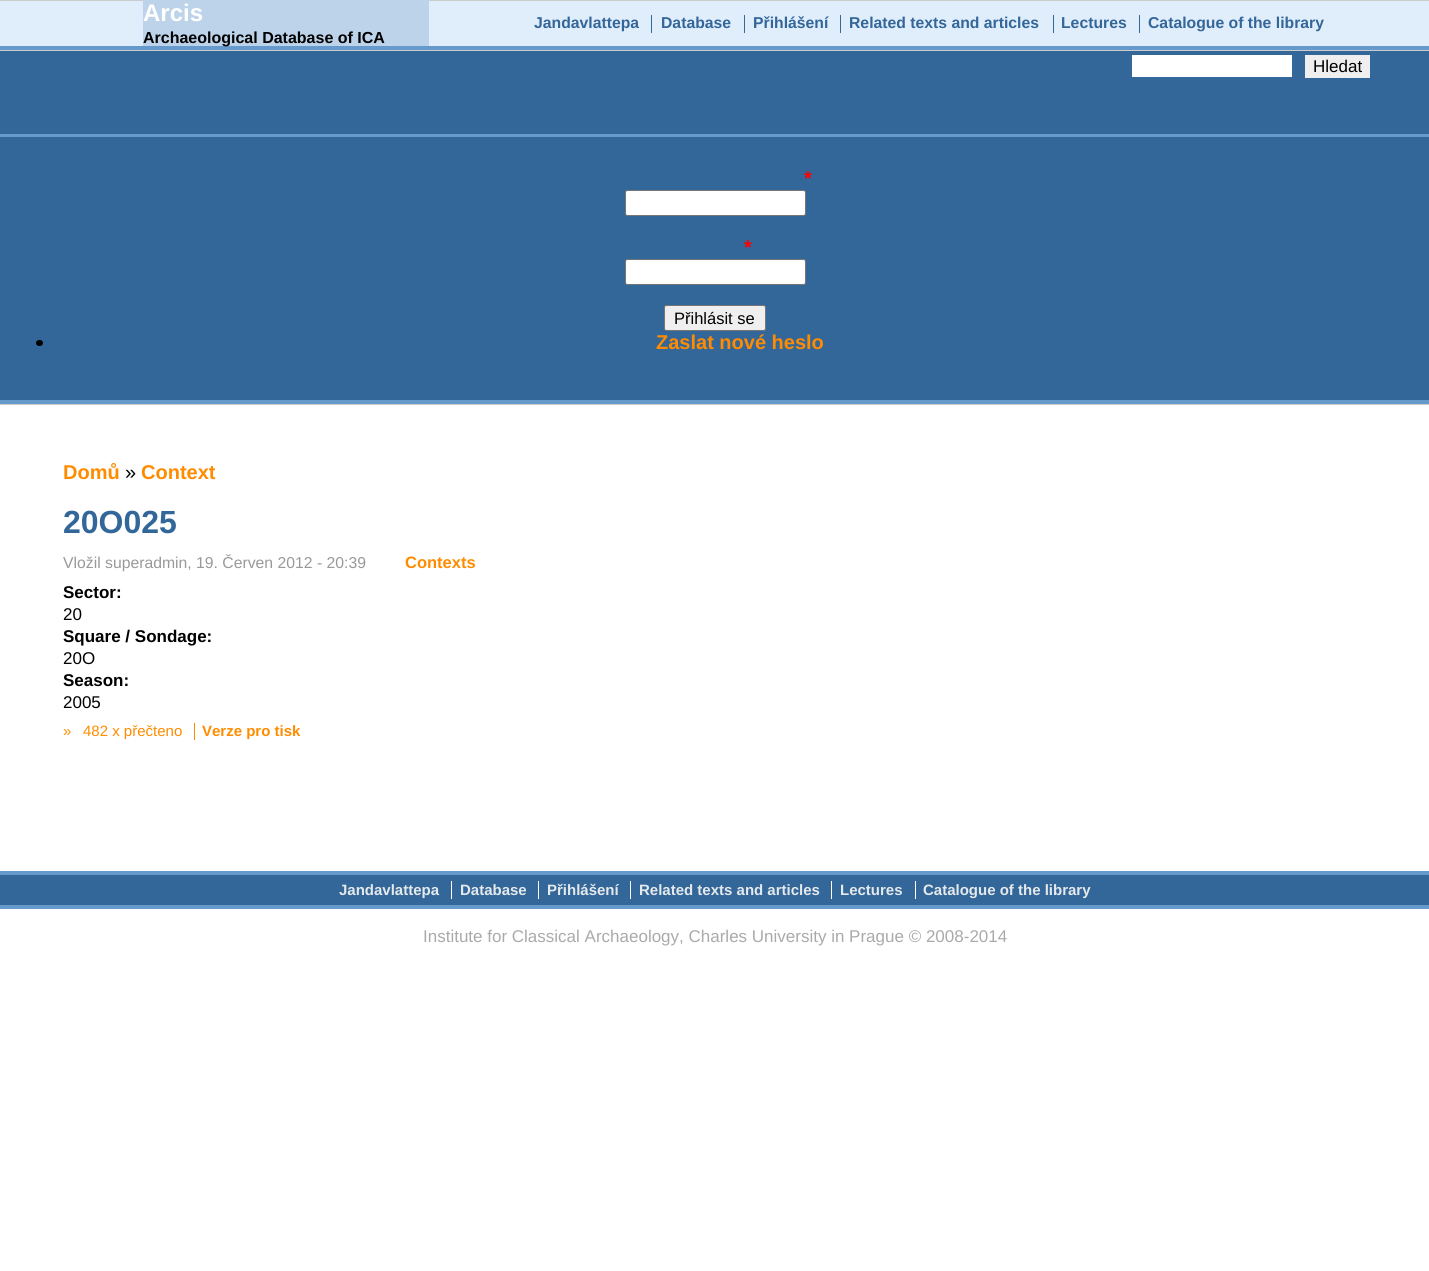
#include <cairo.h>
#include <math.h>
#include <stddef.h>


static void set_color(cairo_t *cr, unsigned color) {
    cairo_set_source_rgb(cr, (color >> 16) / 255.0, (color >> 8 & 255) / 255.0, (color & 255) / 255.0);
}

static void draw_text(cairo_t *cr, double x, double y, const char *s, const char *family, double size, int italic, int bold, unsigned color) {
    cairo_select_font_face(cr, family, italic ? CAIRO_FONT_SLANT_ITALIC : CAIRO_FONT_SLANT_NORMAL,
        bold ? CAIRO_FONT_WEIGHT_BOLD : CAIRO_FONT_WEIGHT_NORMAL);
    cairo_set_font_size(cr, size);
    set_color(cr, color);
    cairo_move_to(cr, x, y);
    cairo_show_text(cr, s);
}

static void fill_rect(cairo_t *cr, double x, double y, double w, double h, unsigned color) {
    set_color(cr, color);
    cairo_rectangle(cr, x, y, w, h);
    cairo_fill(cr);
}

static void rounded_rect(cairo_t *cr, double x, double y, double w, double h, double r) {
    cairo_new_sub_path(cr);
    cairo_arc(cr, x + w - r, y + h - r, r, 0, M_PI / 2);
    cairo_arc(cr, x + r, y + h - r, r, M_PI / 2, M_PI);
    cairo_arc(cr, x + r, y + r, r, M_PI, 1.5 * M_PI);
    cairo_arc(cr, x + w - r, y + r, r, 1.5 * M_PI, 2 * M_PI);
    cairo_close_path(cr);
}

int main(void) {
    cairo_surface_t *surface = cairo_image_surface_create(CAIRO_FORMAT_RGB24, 1429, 1271);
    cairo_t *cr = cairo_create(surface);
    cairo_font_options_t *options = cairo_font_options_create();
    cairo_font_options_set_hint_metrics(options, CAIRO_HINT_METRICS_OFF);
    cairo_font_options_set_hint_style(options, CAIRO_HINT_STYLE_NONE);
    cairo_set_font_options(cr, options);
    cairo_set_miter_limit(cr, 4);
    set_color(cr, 0xFFFFFF);
    cairo_paint(cr);
    fill_rect(cr, 0, 1, 1429, 45, 0xE0EDFB);
    fill_rect(cr, 0, 46, 1429, 4, 0x6699CC);
    fill_rect(cr, 0, 0, 1429, 1, 0xCCCCCC);
    fill_rect(cr, 143, 0, 286, 46, 0xBDD3EA);
    draw_text(cr, 143, 21, "Arcis", "Liberation Sans", 24, 0, 1, 0xFFFFFF);
    draw_text(cr, 143, 43, "Archaeological Database of ICA", "Liberation Sans", 16, 0, 1, 0x000000);
    draw_text(cr, 534, 28, "Jandavlattepa", "Liberation Sans", 15.75, 0, 1, 0x336699);
    draw_text(cr, 661, 28, "Database", "Liberation Sans", 15.75, 0, 1, 0x336699);
    fill_rect(cr, 651, 15, 1, 18, 0x336699);
    draw_text(cr, 753, 28, "Přihlášení", "Liberation Sans", 15.75, 0, 1, 0x336699);
    fill_rect(cr, 744, 15, 1, 18, 0x336699);
    draw_text(cr, 849, 28, "Related texts and articles", "Liberation Sans", 15.75, 0, 1, 0x336699);
    fill_rect(cr, 840, 15, 1, 18, 0x336699);
    draw_text(cr, 1061, 28, "Lectures", "Liberation Sans", 15.75, 0, 1, 0x336699);
    fill_rect(cr, 1053, 15, 1, 18, 0x336699);
    draw_text(cr, 1148, 28, "Catalogue of the library", "Liberation Sans", 15.75, 0, 1, 0x336699);
    fill_rect(cr, 1139, 15, 1, 18, 0x336699);
    fill_rect(cr, 0, 51, 1429, 349, 0x336699);
    fill_rect(cr, 0, 400, 1429, 4, 0x6699CC);
    fill_rect(cr, 0, 50, 1429, 1, 0xCCCCCC);
    fill_rect(cr, 1132, 55, 160, 22, 0xFFFFFF);
    fill_rect(cr, 1305, 55, 65, 23, 0xEFEFEF);
    draw_text(cr, 1313, 72, "Hledat", "Liberation Sans", 17, 0, 0, 0x000000);
    fill_rect(cr, 0, 134, 1429, 3, 0x6699CC);
    draw_text(cr, 804, 185, "*", "Liberation Sans", 20, 0, 1, 0xFF0000);
    set_color(cr, 0xFFFFFF);
    rounded_rect(cr, 625.5, 190.5, 180, 25, 2);
    cairo_fill_preserve(cr);
    set_color(cr, 0x767676);
    cairo_set_line_width(cr, 1);
    cairo_stroke(cr);
    draw_text(cr, 744, 254, "*", "Liberation Sans", 20, 0, 1, 0xFF0000);
    set_color(cr, 0xFFFFFF);
    rounded_rect(cr, 625.5, 259.5, 180, 25, 2);
    cairo_fill_preserve(cr);
    set_color(cr, 0x767676);
    cairo_stroke(cr);
    set_color(cr, 0xEFEFEF);
    rounded_rect(cr, 664.5, 305.5, 101, 25, 2);
    cairo_fill_preserve(cr);
    set_color(cr, 0x767676);
    cairo_stroke(cr);
    draw_text(cr, 674, 324, "Přihlásit se", "Liberation Sans", 16.5, 0, 0, 0x000000);
    rounded_rect(cr, 36, 340, 7, 6, 3);
    cairo_fill(cr);
    draw_text(cr, 656, 349, "Zaslat nové heslo", "Liberation Sans", 20, 0, 1, 0xFF8C00);
    fill_rect(cr, 0, 404, 1429, 1, 0xCCCCCC);
    draw_text(cr, 63, 479, "Domů", "Liberation Sans", 20, 0, 1, 0xFF8C00);
    draw_text(cr, 125, 479, "»", "Liberation Sans", 20, 0, 0, 0x000000);
    draw_text(cr, 141, 479, "Context", "Liberation Sans", 20, 0, 1, 0xFF8C00);
    draw_text(cr, 63, 533, "20O025", "Liberation Sans", 32, 0, 1, 0x336699);
    draw_text(cr, 63, 568, "Vložil superadmin, 19. Červen 2012 - 20:39", "Liberation Sans", 15.75, 0, 0, 0x999999);
    draw_text(cr, 405, 568, "Contexts", "Liberation Sans", 16.5, 0, 1, 0xFF8C00);
    draw_text(cr, 63, 598, "Sector:", "Liberation Sans", 17, 0, 1, 0x000000);
    draw_text(cr, 63, 620, "20", "Liberation Sans", 17, 0, 0, 0x000000);
    draw_text(cr, 63, 642, "Square / Sondage:", "Liberation Sans", 17, 0, 1, 0x000000);
    draw_text(cr, 63, 664, "20O", "Liberation Sans", 17, 0, 0, 0x000000);
    draw_text(cr, 63, 686, "Season:", "Liberation Sans", 17, 0, 1, 0x000000);
    draw_text(cr, 63, 708, "2005", "Liberation Sans", 17, 0, 0, 0x000000);
    draw_text(cr, 63, 736, "»", "Liberation Sans", 15, 0, 0, 0xFF8C00);
    draw_text(cr, 83, 736, "482 x přečteno", "Liberation Sans", 15, 0, 0, 0xFF8C00);
    draw_text(cr, 202, 736, "Verze pro tisk", "Liberation Sans", 15, 0, 1, 0xFF8C00);
    fill_rect(cr, 194, 723, 1, 17, 0xFF8C00);
    fill_rect(cr, 0, 875, 1429, 30, 0x336699);
    fill_rect(cr, 0, 871, 1429, 4, 0x6699CC);
    fill_rect(cr, 0, 905, 1429, 4, 0x6699CC);
    draw_text(cr, 339, 895, "Jandavlattepa", "Liberation Sans", 15, 0, 1, 0xE4E9EB);
    draw_text(cr, 460, 895, "Database", "Liberation Sans", 15, 0, 1, 0xE4E9EB);
    fill_rect(cr, 451, 881, 1, 18, 0xFFFFFF);
    draw_text(cr, 547, 895, "Přihlášení", "Liberation Sans", 15, 0, 1, 0xE4E9EB);
    fill_rect(cr, 538, 881, 1, 18, 0xFFFFFF);
    draw_text(cr, 639, 895, "Related texts and articles", "Liberation Sans", 15, 0, 1, 0xE4E9EB);
    fill_rect(cr, 630, 881, 1, 18, 0xFFFFFF);
    draw_text(cr, 840, 895, "Lectures", "Liberation Sans", 15, 0, 1, 0xE4E9EB);
    fill_rect(cr, 831, 881, 1, 18, 0xFFFFFF);
    draw_text(cr, 923, 895, "Catalogue of the library", "Liberation Sans", 15, 0, 1, 0xE4E9EB);
    fill_rect(cr, 915, 881, 1, 18, 0xFFFFFF);
    draw_text(cr, 423, 942, "Institute for Classical Archaeology, Charles University in Prague © 2008-2014", "Liberation Sans", 17, 0, 0, 0xAAAAAA);
    cairo_surface_write_to_png(surface, "output.png");
    cairo_font_options_destroy(options);
    cairo_destroy(cr);
    cairo_surface_destroy(surface);
    return 0;
}
